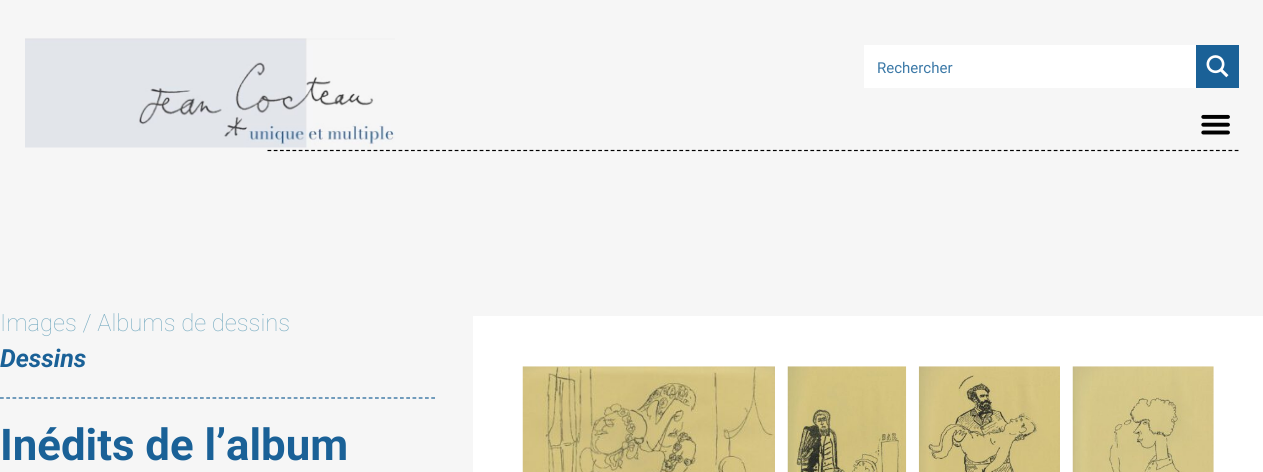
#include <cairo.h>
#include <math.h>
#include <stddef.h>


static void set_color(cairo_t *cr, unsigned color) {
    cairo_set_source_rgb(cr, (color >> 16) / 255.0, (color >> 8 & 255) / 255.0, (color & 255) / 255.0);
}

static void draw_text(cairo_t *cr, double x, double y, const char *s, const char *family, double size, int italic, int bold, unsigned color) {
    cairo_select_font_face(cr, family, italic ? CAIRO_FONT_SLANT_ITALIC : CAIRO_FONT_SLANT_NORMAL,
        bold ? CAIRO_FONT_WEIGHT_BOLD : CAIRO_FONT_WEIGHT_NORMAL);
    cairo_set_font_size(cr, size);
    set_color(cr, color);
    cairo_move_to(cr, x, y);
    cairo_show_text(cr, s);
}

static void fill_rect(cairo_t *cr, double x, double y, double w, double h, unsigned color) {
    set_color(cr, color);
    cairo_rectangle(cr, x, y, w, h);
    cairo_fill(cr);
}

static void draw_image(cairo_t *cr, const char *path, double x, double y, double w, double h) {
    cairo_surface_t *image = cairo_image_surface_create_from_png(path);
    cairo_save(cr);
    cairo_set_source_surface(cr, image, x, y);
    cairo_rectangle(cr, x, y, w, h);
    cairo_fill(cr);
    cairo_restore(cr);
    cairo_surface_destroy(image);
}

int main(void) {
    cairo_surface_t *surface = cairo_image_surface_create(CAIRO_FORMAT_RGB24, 1263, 472);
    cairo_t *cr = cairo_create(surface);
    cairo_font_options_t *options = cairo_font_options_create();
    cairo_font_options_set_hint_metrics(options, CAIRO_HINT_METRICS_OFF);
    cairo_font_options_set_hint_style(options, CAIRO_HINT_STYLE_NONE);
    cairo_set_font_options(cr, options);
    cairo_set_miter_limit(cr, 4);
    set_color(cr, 0xF6F6F6);
    cairo_paint(cr);
    draw_image(cr, "assets/img1.png", 25, 38, 370, 110);
    fill_rect(cr, 864, 45, 332, 43, 0xFFFFFF);
    draw_text(cr, 877, 73, "Rechercher", "Roboto", 15, 0, 0, 0x3C79A7);
    fill_rect(cr, 1196, 45, 43, 43, 0x1A6197);
    draw_image(cr, "assets/img2.png", 1206, 55, 23, 23);
    draw_image(cr, "assets/img3.png", 1201, 114, 29, 21);
    cairo_new_path(cr);
    cairo_move_to(cr, 267.5, 150.5);
    cairo_line_to(cr, 1239, 150.5);
    set_color(cr, 0x000000);
    cairo_set_line_width(cr, 1.2);
    cairo_set_dash(cr, (double[]){3.75, 2.49}, 2, 0);
    cairo_stroke(cr);
    draw_text(cr, 0, 331, "Images / Albums de dessins", "Roboto Thin", 23.75, 0, 0, 0x7AADC2);
    draw_text(cr, 0, 367, "Dessins", "Roboto", 25, 1, 1, 0x1A6197);
    cairo_new_path(cr);
    cairo_move_to(cr, 0, 398);
    cairo_line_to(cr, 435, 398);
    cairo_set_dash(cr, (double[]){3.75, 2.5}, 2, 0);
    cairo_stroke(cr);
    draw_text(cr, 0, 460, "Inédits de l’album", "Roboto", 43.75, 0, 1, 0x1A6197);
    fill_rect(cr, 473, 316, 790, 156, 0xFFFFFF);
    draw_image(cr, "assets/img4.png", 522, 366, 253, 106);
    draw_image(cr, "assets/img5.png", 787, 366, 120, 106);
    draw_image(cr, "assets/img6.png", 918, 366, 142, 106);
    draw_image(cr, "assets/img7.png", 1072, 366, 142, 106);
    cairo_surface_write_to_png(surface, "output.png");
    cairo_font_options_destroy(options);
    cairo_destroy(cr);
    cairo_surface_destroy(surface);
    return 0;
}
